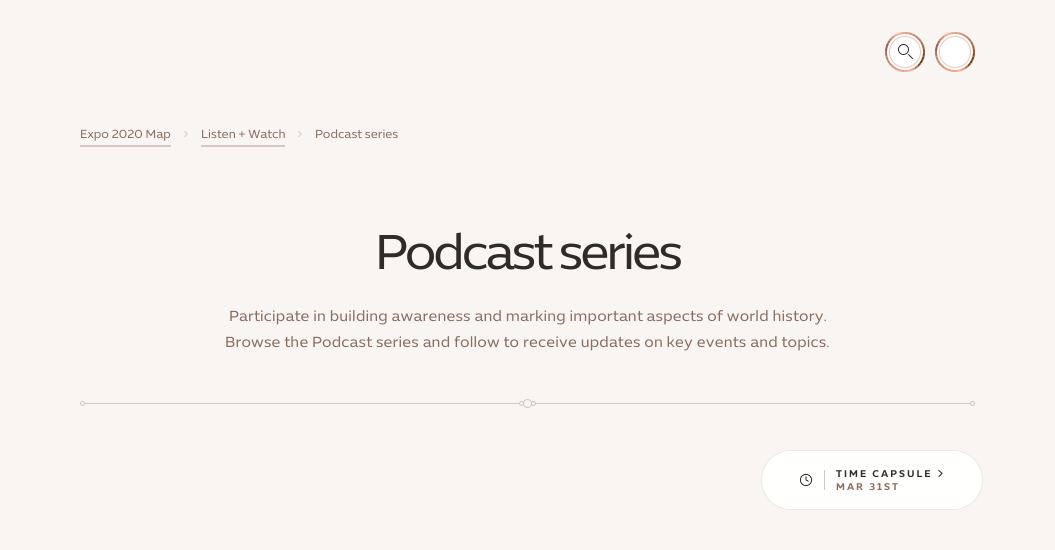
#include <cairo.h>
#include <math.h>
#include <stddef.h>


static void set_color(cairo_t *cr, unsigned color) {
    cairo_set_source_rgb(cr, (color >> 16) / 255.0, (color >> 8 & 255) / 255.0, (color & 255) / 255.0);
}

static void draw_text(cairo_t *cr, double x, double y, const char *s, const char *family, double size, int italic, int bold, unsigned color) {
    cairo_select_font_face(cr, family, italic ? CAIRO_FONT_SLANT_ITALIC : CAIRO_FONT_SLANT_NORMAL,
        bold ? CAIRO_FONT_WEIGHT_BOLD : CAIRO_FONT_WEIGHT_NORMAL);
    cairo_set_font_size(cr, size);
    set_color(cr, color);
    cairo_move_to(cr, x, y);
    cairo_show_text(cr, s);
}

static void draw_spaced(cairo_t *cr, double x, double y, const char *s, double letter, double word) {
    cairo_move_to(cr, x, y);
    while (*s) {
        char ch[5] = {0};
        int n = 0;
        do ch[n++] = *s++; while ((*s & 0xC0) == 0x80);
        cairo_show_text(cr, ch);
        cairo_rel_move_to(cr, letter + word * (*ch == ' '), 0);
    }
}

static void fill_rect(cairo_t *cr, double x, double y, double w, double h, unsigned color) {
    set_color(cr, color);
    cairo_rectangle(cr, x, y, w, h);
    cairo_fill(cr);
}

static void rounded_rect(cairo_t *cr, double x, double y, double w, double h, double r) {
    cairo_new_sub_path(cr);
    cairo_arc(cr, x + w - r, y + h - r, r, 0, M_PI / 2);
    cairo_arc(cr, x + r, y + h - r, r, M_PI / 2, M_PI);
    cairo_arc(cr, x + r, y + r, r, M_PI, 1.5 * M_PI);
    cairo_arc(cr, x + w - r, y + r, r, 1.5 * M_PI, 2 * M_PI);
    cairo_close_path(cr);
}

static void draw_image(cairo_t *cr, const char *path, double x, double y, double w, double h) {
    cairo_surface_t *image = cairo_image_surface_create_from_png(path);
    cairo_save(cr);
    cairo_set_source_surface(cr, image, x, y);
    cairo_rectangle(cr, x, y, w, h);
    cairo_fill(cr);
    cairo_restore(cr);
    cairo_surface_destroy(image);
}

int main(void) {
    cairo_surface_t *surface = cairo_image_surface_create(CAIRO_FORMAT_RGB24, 1055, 550);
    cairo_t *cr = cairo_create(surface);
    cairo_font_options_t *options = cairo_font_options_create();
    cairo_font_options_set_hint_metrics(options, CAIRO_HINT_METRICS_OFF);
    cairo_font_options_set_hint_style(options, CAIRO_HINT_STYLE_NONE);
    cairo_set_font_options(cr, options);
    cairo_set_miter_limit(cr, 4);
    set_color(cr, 0xF9F5F3);
    cairo_paint(cr);
    draw_image(cr, "assets/img1.png", 885, 32, 40, 40);
    set_color(cr, 0xFFFFFF);
    cairo_arc(cr, 905, 52, 18, 0, 2 * M_PI);
    cairo_fill(cr);
    draw_image(cr, "assets/img2.png", 898, 44, 15, 15);
    cairo_arc(cr, 905, 52, 15.5, 0, 2 * M_PI);
    set_color(cr, 0xE7C9BC);
    cairo_set_line_width(cr, 1);
    cairo_stroke(cr);
    draw_image(cr, "assets/img1.png", 935, 32, 40, 40);
    set_color(cr, 0xFFFFFF);
    cairo_arc(cr, 955, 52, 18, 0, 2 * M_PI);
    cairo_fill(cr);
    cairo_arc(cr, 955, 52, 15.5, 0, 2 * M_PI);
    set_color(cr, 0xE7C9BC);
    cairo_stroke(cr);
    draw_text(cr, 80, 138, "Expo 2020 Map", "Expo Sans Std", 12, 0, 0, 0x896D5E);
    set_color(cr, 0xD2C7C1);
    rounded_rect(cr, 80, 145, 91, 2, 0.5);
    cairo_fill(cr);
    draw_image(cr, "assets/img3.png", 184, 131, 4, 6);
    draw_text(cr, 201, 138, "Listen + Watch", "Expo Sans Std", 12, 0, 0, 0x896D5E);
    set_color(cr, 0xD2C7C1);
    rounded_rect(cr, 201, 145, 84, 2, 0.5);
    cairo_fill(cr);
    draw_image(cr, "assets/img3.png", 298, 131, 4, 6);
    draw_text(cr, 315, 138, "Podcast series", "Expo Sans Std", 12, 0, 0, 0x896D5E);
    cairo_set_font_size(cr, 50);
    set_color(cr, 0x312B28);
    draw_spaced(cr, 375, 269, "Podcast series", -3, 0);
    cairo_set_font_size(cr, 15);
    set_color(cr, 0x896D5E);
    draw_spaced(cr, 229, 321, "Participate in building awareness and marking important aspects of world history.", 0.2, 0);
    draw_spaced(cr, 225, 347, "Browse the Podcast series and follow to receive updates on key events and topics.", 0.2, 0);
    cairo_new_path(cr);
    cairo_arc(cr, 82.5, 403.5, 2, 0, 2 * M_PI);
    set_color(cr, 0xD2C7C1);
    cairo_stroke(cr);
    fill_rect(cr, 85, 403, 434, 1, 0xD2C7C1);
    cairo_arc(cr, 521.5, 403.5, 2, 0, 2 * M_PI);
    cairo_stroke(cr);
    cairo_arc(cr, 527.5, 403.5, 4, 0, 2 * M_PI);
    cairo_stroke(cr);
    cairo_arc(cr, 533.5, 403.5, 2, 0, 2 * M_PI);
    cairo_stroke(cr);
    fill_rect(cr, 536, 403, 434, 1, 0xD2C7C1);
    cairo_arc(cr, 972.5, 403.5, 2, 0, 2 * M_PI);
    cairo_stroke(cr);
    rounded_rect(cr, 761.5, 450.5, 221, 59, 29.5);
    set_color(cr, 0xEDE7E4);
    cairo_stroke(cr);
    cairo_set_source_rgba(cr, 1, 1, 1, 0.95);
    rounded_rect(cr, 762, 451, 220, 58, 29);
    cairo_fill(cr);
    draw_image(cr, "assets/img4.png", 800, 474, 12, 12);
    fill_rect(cr, 824, 470, 1, 20, 0xD2C7C1);
    cairo_select_font_face(cr, "Expo Sans Std SemiBold", CAIRO_FONT_SLANT_NORMAL, CAIRO_FONT_WEIGHT_NORMAL);
    cairo_set_font_size(cr, 10);
    set_color(cr, 0x312B28);
    draw_spaced(cr, 836, 477, "TIME CAPSULE", 2, 0);
    draw_image(cr, "assets/img5.png", 938, 470, 5, 7);
    set_color(cr, 0x896D5E);
    draw_spaced(cr, 836, 490, "MAR 31ST", 2, 0);
    cairo_surface_write_to_png(surface, "output.png");
    cairo_font_options_destroy(options);
    cairo_destroy(cr);
    cairo_surface_destroy(surface);
    return 0;
}
